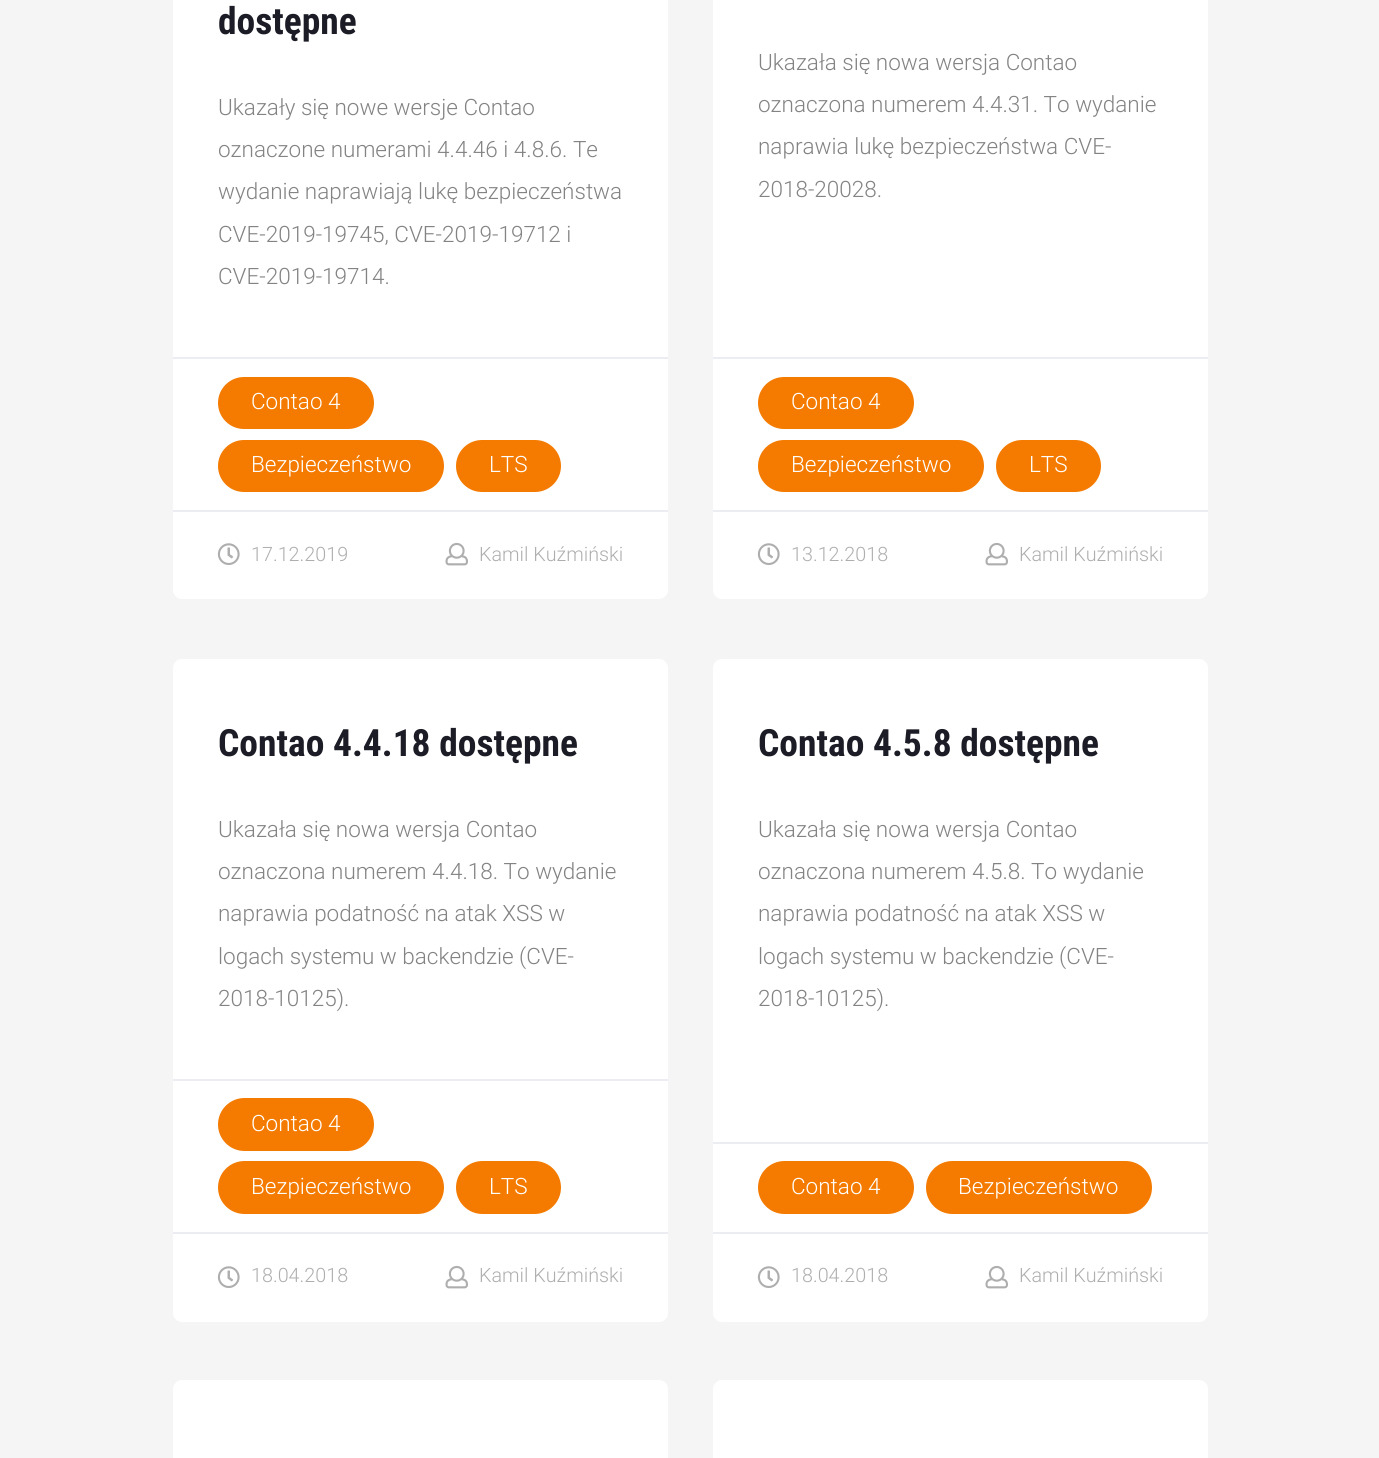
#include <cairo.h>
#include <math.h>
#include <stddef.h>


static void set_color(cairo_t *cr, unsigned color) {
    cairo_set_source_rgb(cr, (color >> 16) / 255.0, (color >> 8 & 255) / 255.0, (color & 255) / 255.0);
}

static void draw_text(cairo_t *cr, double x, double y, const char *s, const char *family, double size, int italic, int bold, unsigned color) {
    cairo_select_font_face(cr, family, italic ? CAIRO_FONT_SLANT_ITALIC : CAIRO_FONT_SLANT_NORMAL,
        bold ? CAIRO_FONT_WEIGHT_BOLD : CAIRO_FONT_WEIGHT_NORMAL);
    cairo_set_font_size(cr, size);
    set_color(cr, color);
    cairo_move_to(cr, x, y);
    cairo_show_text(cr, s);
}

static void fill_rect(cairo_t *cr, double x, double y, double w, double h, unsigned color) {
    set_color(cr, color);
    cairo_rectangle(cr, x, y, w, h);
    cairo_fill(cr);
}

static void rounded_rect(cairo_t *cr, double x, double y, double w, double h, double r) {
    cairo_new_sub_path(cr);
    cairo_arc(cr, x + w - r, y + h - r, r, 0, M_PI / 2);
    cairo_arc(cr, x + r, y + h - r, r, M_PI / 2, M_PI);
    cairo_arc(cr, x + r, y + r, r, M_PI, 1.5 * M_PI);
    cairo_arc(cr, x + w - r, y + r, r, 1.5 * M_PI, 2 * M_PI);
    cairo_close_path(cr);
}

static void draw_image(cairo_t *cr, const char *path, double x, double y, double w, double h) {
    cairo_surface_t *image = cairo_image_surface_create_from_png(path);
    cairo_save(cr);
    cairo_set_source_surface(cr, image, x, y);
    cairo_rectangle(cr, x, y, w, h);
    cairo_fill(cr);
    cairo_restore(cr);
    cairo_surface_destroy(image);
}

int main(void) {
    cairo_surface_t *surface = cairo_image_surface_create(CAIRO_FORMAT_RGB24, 1379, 1458);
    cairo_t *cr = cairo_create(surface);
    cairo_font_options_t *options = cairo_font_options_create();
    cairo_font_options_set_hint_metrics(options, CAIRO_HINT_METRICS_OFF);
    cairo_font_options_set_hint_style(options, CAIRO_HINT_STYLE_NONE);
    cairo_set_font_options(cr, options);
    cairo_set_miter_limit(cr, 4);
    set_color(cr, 0xF5F5F5);
    cairo_paint(cr);
    set_color(cr, 0xFFFFFF);
    rounded_rect(cr, 173, -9, 495, 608, 9);
    cairo_fill(cr);
    draw_text(cr, 218, 34, "dostępne", "Roboto Condensed", 37.5, 0, 1, 0x1B1C25);
    draw_text(cr, 218, 115, "Ukazały się nowe wersje Contao", "Roboto Light", 22.5, 0, 0, 0x838383);
    draw_text(cr, 218, 157, "oznaczone numerami 4.4.46 i 4.8.6. Te", "Roboto Light", 22.5, 0, 0, 0x838383);
    draw_text(cr, 218, 199, "wydanie naprawiają lukę bezpieczeństwa", "Roboto Light", 22.5, 0, 0, 0x838383);
    draw_text(cr, 218, 242, "CVE-2019-19745, CVE-2019-19712 i", "Roboto Light", 22.5, 0, 0, 0x838383);
    draw_text(cr, 218, 284, "CVE-2019-19714.", "Roboto Light", 22.5, 0, 0, 0x838383);
    fill_rect(cr, 173, 357, 495, 2, 0xEBEDF2);
    set_color(cr, 0xF47B00);
    rounded_rect(cr, 218, 377, 156, 52, 26);
    cairo_fill(cr);
    draw_text(cr, 251, 409, "Contao 4", "Roboto Light", 22.5, 0, 0, 0xFFFFFF);
    set_color(cr, 0xF47B00);
    rounded_rect(cr, 218, 440, 226, 52, 26);
    cairo_fill(cr);
    draw_text(cr, 251, 472, "Bezpieczeństwo", "Roboto Light", 22.5, 0, 0, 0xFFFFFF);
    set_color(cr, 0xF47B00);
    rounded_rect(cr, 456, 440, 105, 52, 26);
    cairo_fill(cr);
    draw_text(cr, 489, 472, "LTS", "Roboto Light", 22.5, 0, 0, 0xFFFFFF);
    fill_rect(cr, 173, 510, 495, 2, 0xEBEDF2);
    draw_image(cr, "assets/img1.png", 217, 543, 23, 22);
    draw_text(cr, 251, 561, "17.12.2019", "Roboto Light", 19.75, 0, 0, 0xAEAEAE);
    draw_image(cr, "assets/img2.png", 445, 542, 23, 24);
    draw_text(cr, 479, 561, "Kamil Kuźmiński", "Roboto Light", 19.75, 0, 0, 0xAEAEAE);
    set_color(cr, 0xFFFFFF);
    rounded_rect(cr, 713, -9, 495, 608, 9);
    cairo_fill(cr);
    draw_text(cr, 758, 70, "Ukazała się nowa wersja Contao", "Roboto Light", 22.5, 0, 0, 0x838383);
    draw_text(cr, 758, 112, "oznaczona numerem 4.4.31. To wydanie", "Roboto Light", 22.5, 0, 0, 0x838383);
    draw_text(cr, 758, 154, "naprawia lukę bezpieczeństwa CVE-", "Roboto Light", 22.5, 0, 0, 0x838383);
    draw_text(cr, 758, 197, "2018-20028.", "Roboto Light", 22.5, 0, 0, 0x838383);
    fill_rect(cr, 713, 357, 495, 2, 0xEBEDF2);
    set_color(cr, 0xF47B00);
    rounded_rect(cr, 758, 377, 156, 52, 26);
    cairo_fill(cr);
    draw_text(cr, 791, 409, "Contao 4", "Roboto Light", 22.5, 0, 0, 0xFFFFFF);
    set_color(cr, 0xF47B00);
    rounded_rect(cr, 758, 440, 226, 52, 26);
    cairo_fill(cr);
    draw_text(cr, 791, 472, "Bezpieczeństwo", "Roboto Light", 22.5, 0, 0, 0xFFFFFF);
    set_color(cr, 0xF47B00);
    rounded_rect(cr, 996, 440, 105, 52, 26);
    cairo_fill(cr);
    draw_text(cr, 1029, 472, "LTS", "Roboto Light", 22.5, 0, 0, 0xFFFFFF);
    fill_rect(cr, 713, 510, 495, 2, 0xEBEDF2);
    draw_image(cr, "assets/img1.png", 757, 543, 23, 22);
    draw_text(cr, 791, 561, "13.12.2018", "Roboto Light", 19.75, 0, 0, 0xAEAEAE);
    draw_image(cr, "assets/img2.png", 985, 542, 23, 24);
    draw_text(cr, 1019, 561, "Kamil Kuźmiński", "Roboto Light", 19.75, 0, 0, 0xAEAEAE);
    set_color(cr, 0xFFFFFF);
    rounded_rect(cr, 173, 659, 495, 663, 9);
    cairo_fill(cr);
    draw_text(cr, 218, 756, "Contao 4.4.18 dostępne", "Roboto Condensed", 37.5, 0, 1, 0x1B1C25);
    draw_text(cr, 218, 837, "Ukazała się nowa wersja Contao", "Roboto Light", 22.5, 0, 0, 0x838383);
    draw_text(cr, 218, 879, "oznaczona numerem 4.4.18. To wydanie", "Roboto Light", 22.5, 0, 0, 0x838383);
    draw_text(cr, 218, 921, "naprawia podatność na atak XSS w", "Roboto Light", 22.5, 0, 0, 0x838383);
    draw_text(cr, 218, 964, "logach systemu w backendzie (CVE-", "Roboto Light", 22.5, 0, 0, 0x838383);
    draw_text(cr, 218, 1006, "2018-10125).", "Roboto Light", 22.5, 0, 0, 0x838383);
    fill_rect(cr, 173, 1079, 495, 2, 0xEBEDF2);
    set_color(cr, 0xF47B00);
    rounded_rect(cr, 218, 1098, 156, 53, 26.5);
    cairo_fill(cr);
    draw_text(cr, 251, 1131, "Contao 4", "Roboto Light", 22.5, 0, 0, 0xFFFFFF);
    set_color(cr, 0xF47B00);
    rounded_rect(cr, 218, 1161, 226, 53, 26.5);
    cairo_fill(cr);
    draw_text(cr, 251, 1194, "Bezpieczeństwo", "Roboto Light", 22.5, 0, 0, 0xFFFFFF);
    set_color(cr, 0xF47B00);
    rounded_rect(cr, 456, 1161, 105, 53, 26.5);
    cairo_fill(cr);
    draw_text(cr, 489, 1194, "LTS", "Roboto Light", 22.5, 0, 0, 0xFFFFFF);
    fill_rect(cr, 173, 1232, 495, 2, 0xEBEDF2);
    draw_image(cr, "assets/img1.png", 217, 1266, 23, 22);
    draw_text(cr, 251, 1282, "18.04.2018", "Roboto Light", 19.75, 0, 0, 0xAEAEAE);
    draw_image(cr, "assets/img2.png", 445, 1265, 23, 24);
    draw_text(cr, 479, 1282, "Kamil Kuźmiński", "Roboto Light", 19.75, 0, 0, 0xAEAEAE);
    set_color(cr, 0xFFFFFF);
    rounded_rect(cr, 713, 659, 495, 663, 9);
    cairo_fill(cr);
    draw_text(cr, 758, 756, "Contao 4.5.8 dostępne", "Roboto Condensed", 37.5, 0, 1, 0x1B1C25);
    draw_text(cr, 758, 837, "Ukazała się nowa wersja Contao", "Roboto Light", 22.5, 0, 0, 0x838383);
    draw_text(cr, 758, 879, "oznaczona numerem 4.5.8. To wydanie", "Roboto Light", 22.5, 0, 0, 0x838383);
    draw_text(cr, 758, 921, "naprawia podatność na atak XSS w", "Roboto Light", 22.5, 0, 0, 0x838383);
    draw_text(cr, 758, 964, "logach systemu w backendzie (CVE-", "Roboto Light", 22.5, 0, 0, 0x838383);
    draw_text(cr, 758, 1006, "2018-10125).", "Roboto Light", 22.5, 0, 0, 0x838383);
    fill_rect(cr, 713, 1142, 495, 2, 0xEBEDF2);
    set_color(cr, 0xF47B00);
    rounded_rect(cr, 758, 1161, 156, 53, 26.5);
    cairo_fill(cr);
    draw_text(cr, 791, 1194, "Contao 4", "Roboto Light", 22.5, 0, 0, 0xFFFFFF);
    set_color(cr, 0xF47B00);
    rounded_rect(cr, 926, 1161, 226, 53, 26.5);
    cairo_fill(cr);
    draw_text(cr, 958, 1194, "Bezpieczeństwo", "Roboto Light", 22.5, 0, 0, 0xFFFFFF);
    fill_rect(cr, 713, 1232, 495, 2, 0xEBEDF2);
    draw_image(cr, "assets/img1.png", 757, 1266, 23, 22);
    draw_text(cr, 791, 1282, "18.04.2018", "Roboto Light", 19.75, 0, 0, 0xAEAEAE);
    draw_image(cr, "assets/img2.png", 985, 1265, 23, 24);
    draw_text(cr, 1019, 1282, "Kamil Kuźmiński", "Roboto Light", 19.75, 0, 0, 0xAEAEAE);
    set_color(cr, 0xFFFFFF);
    rounded_rect(cr, 173, 1380, 495, 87, 9);
    cairo_fill(cr);
    rounded_rect(cr, 713, 1380, 495, 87, 9);
    cairo_fill(cr);
    cairo_surface_write_to_png(surface, "output.png");
    cairo_font_options_destroy(options);
    cairo_destroy(cr);
    cairo_surface_destroy(surface);
    return 0;
}
